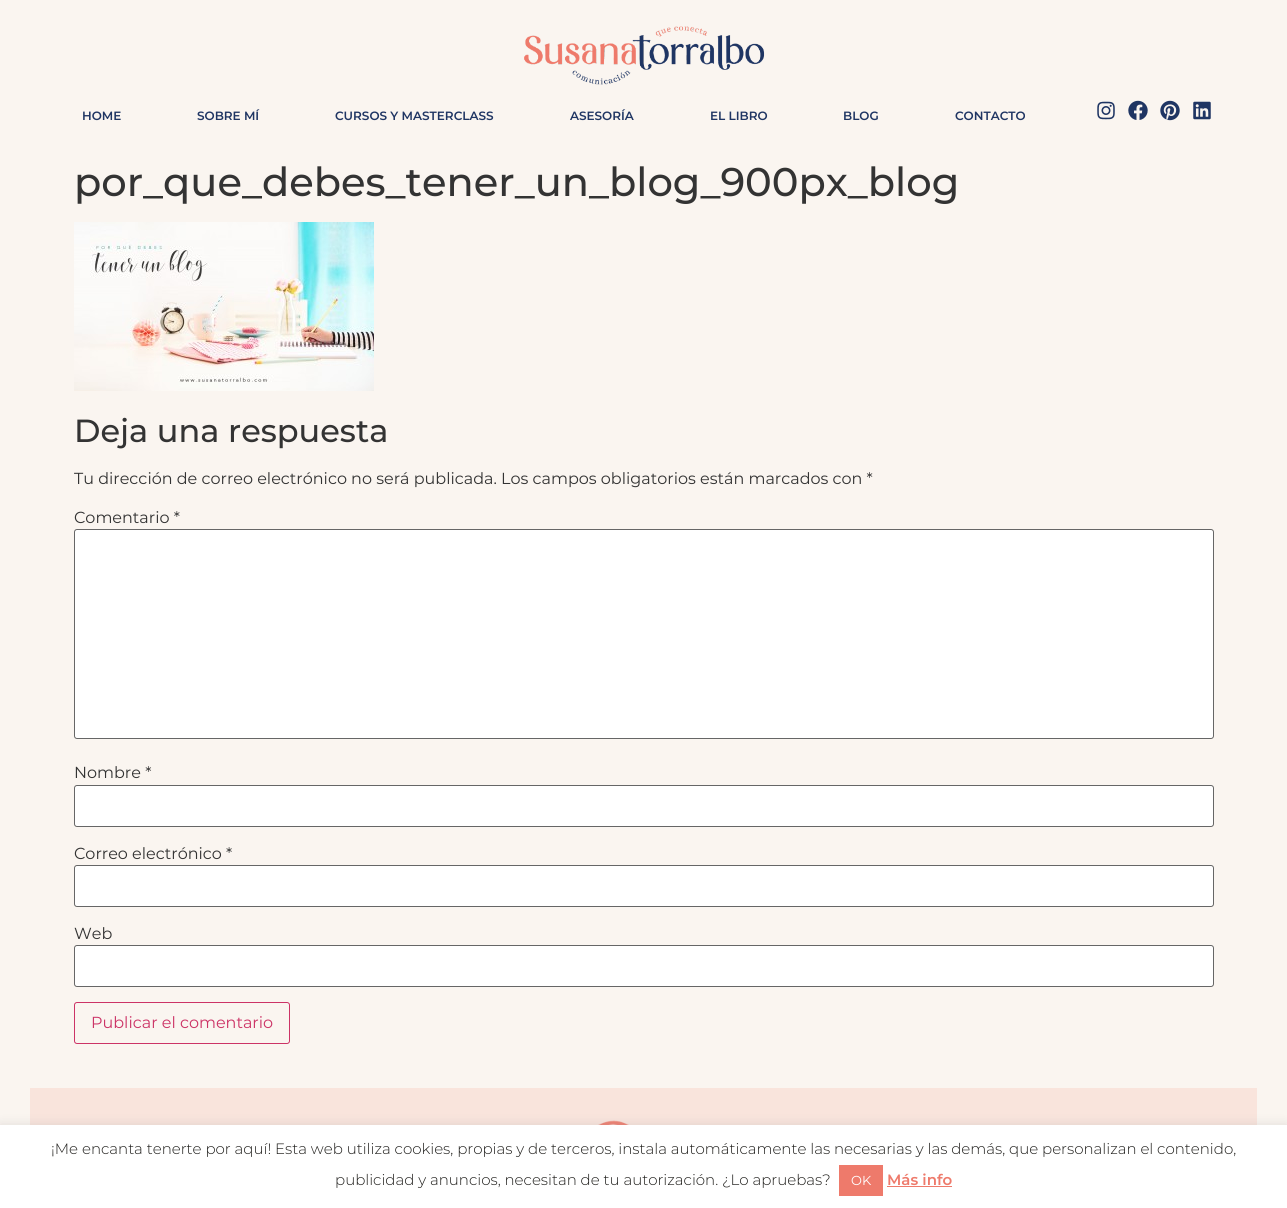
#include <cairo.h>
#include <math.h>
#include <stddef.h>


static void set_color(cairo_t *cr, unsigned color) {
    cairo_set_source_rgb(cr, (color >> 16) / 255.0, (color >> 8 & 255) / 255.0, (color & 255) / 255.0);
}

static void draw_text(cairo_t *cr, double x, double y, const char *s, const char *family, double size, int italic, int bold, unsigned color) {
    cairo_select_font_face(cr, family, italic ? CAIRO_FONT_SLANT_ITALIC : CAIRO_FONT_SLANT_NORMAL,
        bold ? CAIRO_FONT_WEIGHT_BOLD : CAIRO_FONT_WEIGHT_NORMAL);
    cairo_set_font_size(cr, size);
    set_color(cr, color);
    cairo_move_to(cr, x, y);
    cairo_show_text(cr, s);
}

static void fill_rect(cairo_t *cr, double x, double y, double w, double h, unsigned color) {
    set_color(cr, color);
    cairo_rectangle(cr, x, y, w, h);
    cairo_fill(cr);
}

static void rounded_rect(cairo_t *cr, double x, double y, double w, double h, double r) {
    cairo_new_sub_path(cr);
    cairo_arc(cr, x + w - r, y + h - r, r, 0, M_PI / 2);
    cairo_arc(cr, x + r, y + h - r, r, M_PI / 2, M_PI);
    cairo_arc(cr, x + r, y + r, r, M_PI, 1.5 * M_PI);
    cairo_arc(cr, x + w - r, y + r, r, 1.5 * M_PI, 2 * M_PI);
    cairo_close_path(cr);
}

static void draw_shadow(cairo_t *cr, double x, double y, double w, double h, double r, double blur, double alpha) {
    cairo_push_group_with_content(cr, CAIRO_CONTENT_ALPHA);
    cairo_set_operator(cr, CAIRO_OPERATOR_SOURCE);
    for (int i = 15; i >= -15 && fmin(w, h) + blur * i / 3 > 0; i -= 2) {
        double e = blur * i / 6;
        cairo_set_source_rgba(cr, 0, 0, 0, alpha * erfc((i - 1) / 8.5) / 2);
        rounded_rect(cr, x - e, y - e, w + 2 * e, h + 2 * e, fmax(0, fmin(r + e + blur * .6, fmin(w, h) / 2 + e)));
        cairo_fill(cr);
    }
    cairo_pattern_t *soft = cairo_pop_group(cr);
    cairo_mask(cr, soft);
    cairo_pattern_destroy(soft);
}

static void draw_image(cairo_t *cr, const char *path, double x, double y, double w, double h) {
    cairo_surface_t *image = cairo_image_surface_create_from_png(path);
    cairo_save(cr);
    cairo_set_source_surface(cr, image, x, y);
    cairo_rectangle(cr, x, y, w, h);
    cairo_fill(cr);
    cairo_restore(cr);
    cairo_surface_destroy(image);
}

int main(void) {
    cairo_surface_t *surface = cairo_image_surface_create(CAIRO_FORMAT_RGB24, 1287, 1208);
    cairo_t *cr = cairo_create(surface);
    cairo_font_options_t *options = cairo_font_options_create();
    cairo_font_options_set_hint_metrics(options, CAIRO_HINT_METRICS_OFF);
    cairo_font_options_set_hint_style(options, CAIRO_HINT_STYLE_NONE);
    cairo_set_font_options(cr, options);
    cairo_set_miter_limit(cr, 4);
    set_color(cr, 0xFAF5F0);
    cairo_paint(cr);
    draw_image(cr, "assets/img1.png", 524, 26, 241, 59);
    draw_text(cr, 82, 120, "HOME", "Montserrat SemiBold", 12, 0, 0, 0x1F3563);
    draw_text(cr, 197, 120, "SOBRE MÍ", "Montserrat SemiBold", 12, 0, 0, 0x1F3563);
    draw_text(cr, 335, 120, "CURSOS Y MASTERCLASS", "Montserrat SemiBold", 12, 0, 0, 0x1F3563);
    draw_text(cr, 570, 120, "ASESORÍA", "Montserrat SemiBold", 12, 0, 0, 0x1F3563);
    draw_text(cr, 710, 120, "EL LIBRO", "Montserrat SemiBold", 12, 0, 0, 0x1F3563);
    draw_text(cr, 843, 120, "BLOG", "Montserrat SemiBold", 12, 0, 0, 0x1F3563);
    draw_text(cr, 955, 120, "CONTACTO", "Montserrat SemiBold", 12, 0, 0, 0x1F3563);
    draw_image(cr, "assets/img2.png", 1097, 101, 18, 19);
    draw_image(cr, "assets/img3.png", 1128, 100, 20, 20);
    draw_image(cr, "assets/img4.png", 1160, 100, 20, 21);
    draw_image(cr, "assets/img5.png", 1193, 101, 18, 19);
    draw_text(cr, 74, 196, "por_que_debes_tener_un_blog_900px_blog", "Montserrat Medium", 40, 0, 0, 0x333333);
    draw_image(cr, "assets/img6.png", 74, 222, 300, 169);
    draw_text(cr, 74, 442, "Deja una respuesta", "Montserrat Medium", 32, 0, 0, 0x333333);
    draw_text(cr, 74, 484, "Tu dirección de correo electrónico no será publicada. Los campos obligatorios están marcados con *", "Montserrat", 16, 0, 0, 0x333333);
    draw_text(cr, 74, 523, "Comentario *", "Montserrat", 16, 0, 0, 0x333333);
    set_color(cr, 0xFFFFFF);
    rounded_rect(cr, 74.5, 529.5, 1139, 209, 2.5);
    cairo_fill_preserve(cr);
    set_color(cr, 0x666666);
    cairo_set_line_width(cr, 1);
    cairo_stroke(cr);
    draw_text(cr, 74, 778, "Nombre *", "Montserrat", 16, 0, 0, 0x333333);
    set_color(cr, 0xFFFFFF);
    rounded_rect(cr, 74.5, 785.5, 1139, 41, 2.5);
    cairo_fill_preserve(cr);
    set_color(cr, 0x666666);
    cairo_stroke(cr);
    draw_text(cr, 74, 859, "Correo electrónico *", "Montserrat", 16, 0, 0, 0x333333);
    set_color(cr, 0xFFFFFF);
    rounded_rect(cr, 74.5, 865.5, 1139, 41, 2.5);
    cairo_fill_preserve(cr);
    set_color(cr, 0x666666);
    cairo_stroke(cr);
    draw_text(cr, 74, 939, "Web", "Montserrat", 16, 0, 0, 0x333333);
    set_color(cr, 0xFFFFFF);
    rounded_rect(cr, 74.5, 945.5, 1139, 41, 2.5);
    cairo_fill_preserve(cr);
    set_color(cr, 0x666666);
    cairo_stroke(cr);
    rounded_rect(cr, 74.5, 1002.5, 215, 41, 2.5);
    set_color(cr, 0xCC3366);
    cairo_stroke(cr);
    draw_text(cr, 91, 1028, "Publicar el comentario", "Montserrat", 16, 0, 0, 0xCC3366);
    fill_rect(cr, 30, 1088, 1227, 37, 0xF9E4DC);
    draw_image(cr, "assets/img7.png", 598, 1120, 31, 5);
    set_color(cr, 0xACABAB);
    draw_shadow(cr, 0, 1124, 1287, 83, 0, 5, 0.3);
    fill_rect(cr, 0, 1125, 1287, 83, 0xFFFFFF);
    draw_text(cr, 51, 1154, "¡Me encanta tenerte por aquí! Esta web utiliza cookies, propias y de terceros, instala automáticamente las necesarias y las demás, que personalizan el contenido,", "Montserrat Light", 15, 0, 0, 0x1E1D1A);
    draw_text(cr, 335, 1185, "publicidad y anuncios, necesitan de tu autorización. ¿Lo apruebas?", "Montserrat Light", 15, 0, 0, 0x1E1D1A);
    fill_rect(cr, 839, 1165, 44, 31, 0xEE7A6B);
    draw_text(cr, 851, 1185, "OK", "Montserrat", 13, 0, 0, 0xFFFFFF);
    draw_text(cr, 887, 1185, "Más info", "Montserrat SemiBold", 15, 0, 0, 0xEE7A6B);
    fill_rect(cr, 887, 1186, 65, 1, 0xEE7A6B);
    cairo_surface_write_to_png(surface, "output.png");
    cairo_font_options_destroy(options);
    cairo_destroy(cr);
    cairo_surface_destroy(surface);
    return 0;
}
